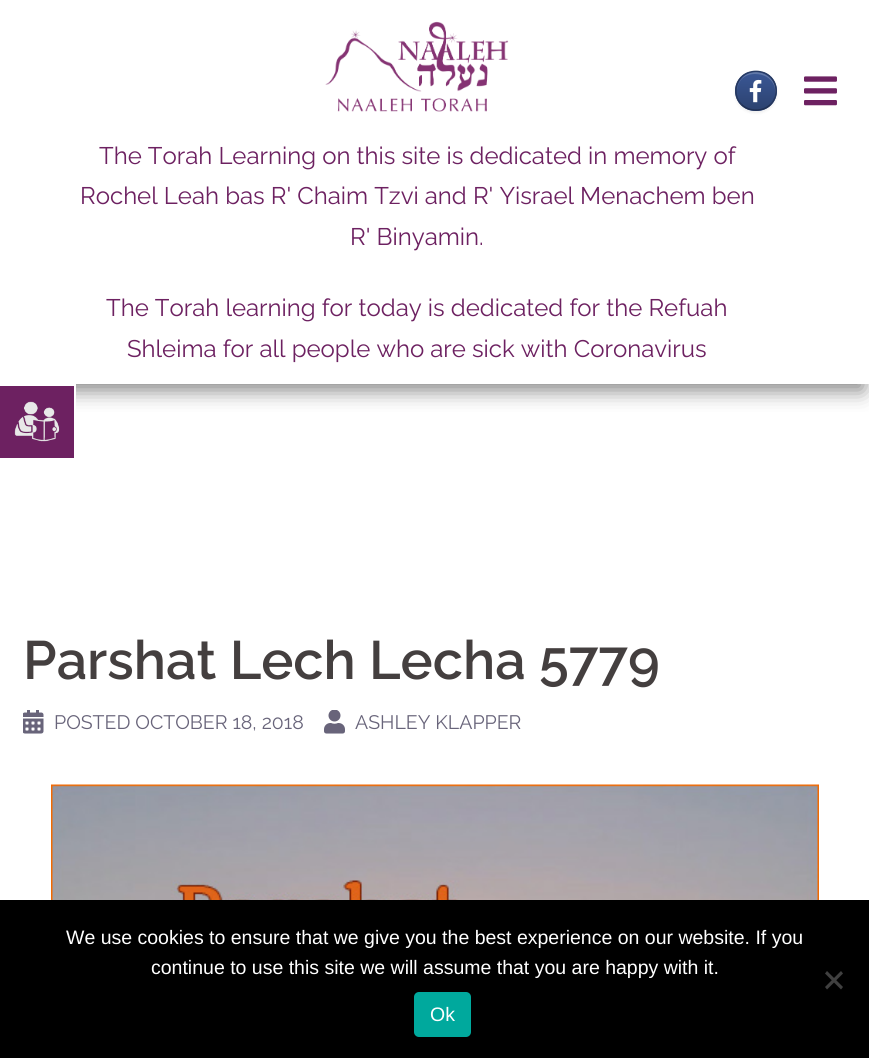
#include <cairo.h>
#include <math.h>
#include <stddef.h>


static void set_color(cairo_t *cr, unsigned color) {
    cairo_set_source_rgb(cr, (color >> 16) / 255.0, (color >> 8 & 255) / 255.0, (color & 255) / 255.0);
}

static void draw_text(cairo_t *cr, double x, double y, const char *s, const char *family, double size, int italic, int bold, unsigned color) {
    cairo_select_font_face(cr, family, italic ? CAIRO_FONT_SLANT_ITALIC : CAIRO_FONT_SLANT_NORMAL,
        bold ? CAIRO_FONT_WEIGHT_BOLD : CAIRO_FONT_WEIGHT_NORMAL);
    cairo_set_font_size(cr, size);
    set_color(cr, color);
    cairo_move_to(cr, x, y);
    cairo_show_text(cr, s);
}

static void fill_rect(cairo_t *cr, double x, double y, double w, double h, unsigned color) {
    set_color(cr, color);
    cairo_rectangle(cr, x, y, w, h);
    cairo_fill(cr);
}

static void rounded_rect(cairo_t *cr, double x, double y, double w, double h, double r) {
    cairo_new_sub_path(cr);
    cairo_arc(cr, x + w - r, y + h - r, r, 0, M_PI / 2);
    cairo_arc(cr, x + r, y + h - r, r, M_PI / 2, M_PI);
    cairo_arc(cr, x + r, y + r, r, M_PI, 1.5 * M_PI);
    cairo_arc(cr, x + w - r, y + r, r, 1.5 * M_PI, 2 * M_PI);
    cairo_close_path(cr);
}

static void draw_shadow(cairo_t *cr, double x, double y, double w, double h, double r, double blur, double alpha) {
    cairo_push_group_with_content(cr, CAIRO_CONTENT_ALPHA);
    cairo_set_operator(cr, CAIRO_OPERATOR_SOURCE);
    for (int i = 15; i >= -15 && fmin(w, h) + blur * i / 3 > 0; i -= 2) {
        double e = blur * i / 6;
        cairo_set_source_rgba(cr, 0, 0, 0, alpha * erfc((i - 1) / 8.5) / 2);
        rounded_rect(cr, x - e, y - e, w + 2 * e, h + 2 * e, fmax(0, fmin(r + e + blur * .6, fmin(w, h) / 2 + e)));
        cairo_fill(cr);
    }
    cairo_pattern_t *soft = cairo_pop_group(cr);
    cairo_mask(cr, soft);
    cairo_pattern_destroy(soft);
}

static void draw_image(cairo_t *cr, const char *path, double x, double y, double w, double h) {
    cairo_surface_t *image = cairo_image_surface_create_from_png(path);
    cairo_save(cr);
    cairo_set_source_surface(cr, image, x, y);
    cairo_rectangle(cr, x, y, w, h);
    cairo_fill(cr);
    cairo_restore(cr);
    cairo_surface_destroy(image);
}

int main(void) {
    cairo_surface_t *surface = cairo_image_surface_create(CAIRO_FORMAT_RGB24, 869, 1058);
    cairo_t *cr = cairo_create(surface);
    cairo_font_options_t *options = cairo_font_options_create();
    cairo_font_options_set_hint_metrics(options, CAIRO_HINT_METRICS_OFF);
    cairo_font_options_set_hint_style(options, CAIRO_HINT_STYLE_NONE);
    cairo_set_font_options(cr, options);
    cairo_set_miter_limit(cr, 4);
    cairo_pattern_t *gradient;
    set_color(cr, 0xFFFFFF);
    cairo_paint(cr);
    cairo_save(cr);
    cairo_rectangle(cr, 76, 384, 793, 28);
    cairo_clip(cr);
    set_color(cr, 0x808080);
    draw_shadow(cr, 8, 21, 855, 369, 0, 10.5, 1);
    cairo_restore(cr);
    draw_image(cr, "assets/img1.png", 325, 21, 184, 91);
    set_color(cr, 0x000000);
    draw_shadow(cr, 735, 72, 42, 41, 20.5, 1.5, 0.07);
    cairo_save(cr);
    rounded_rect(cr, 735, 71, 42, 40, 20);
    cairo_clip(cr);
    gradient = cairo_pattern_create_linear(737, 110, 737, 72);
    cairo_pattern_add_color_stop_rgba(gradient, 0, 0.173, 0.259, 0.439, 1);
    cairo_pattern_add_color_stop_rgba(gradient, 1, 0.227, 0.341, 0.584, 1);
    cairo_set_source(cr, gradient);
    cairo_pattern_destroy(gradient);
    cairo_rectangle(cr, 735, 72, 42, 38);
    cairo_fill(cr);
    gradient = cairo_pattern_create_linear(737, 147, 737, 110);
    cairo_pattern_add_color_stop_rgba(gradient, 0, 0.173, 0.259, 0.439, 1);
    cairo_pattern_add_color_stop_rgba(gradient, 1, 0.227, 0.341, 0.584, 1);
    cairo_set_source(cr, gradient);
    cairo_pattern_destroy(gradient);
    cairo_rectangle(cr, 749, 110, 14, 1);
    cairo_fill(cr);
    cairo_restore(cr);
    cairo_set_source_rgba(cr, 1, 1, 1, 0.2);
    cairo_new_path(cr);
    cairo_move_to(cr, 755, 74);
    cairo_curve_to(cr, 773, 74, 779, 90, 773, 101);
    cairo_curve_to(cr, 785, 83, 759, 62, 743, 77);
    cairo_curve_to(cr, 740, 80, 737, 85, 737, 90);
    cairo_curve_to(cr, 738, 81, 744, 74, 755, 74);
    cairo_close_path(cr);
    cairo_fill(cr);
    cairo_new_path(cr);
    cairo_move_to(cr, 741.5, 77);
    cairo_curve_to(cr, 749, 69.5, 763, 69.5, 770.5, 77);
    set_color(cr, 0x273B65);
    cairo_set_line_width(cr, 1.5);
    cairo_stroke(cr);
    cairo_new_path(cr);
    cairo_move_to(cr, 770.5, 77);
    cairo_curve_to(cr, 778, 84.5, 778, 97, 770.5, 104.5);
    set_color(cr, 0x25375E);
    cairo_stroke(cr);
    cairo_new_path(cr);
    cairo_move_to(cr, 770.5, 104.5);
    cairo_curve_to(cr, 763, 112, 749, 112, 741.5, 104.5);
    set_color(cr, 0x203053);
    cairo_stroke(cr);
    cairo_new_path(cr);
    cairo_move_to(cr, 741.5, 104.5);
    cairo_curve_to(cr, 734, 97, 734, 84.5, 741.5, 77);
    set_color(cr, 0x25375E);
    cairo_stroke(cr);
    draw_image(cr, "assets/img2.png", 749, 79, 13, 24);
    draw_image(cr, "assets/img3.png", 804, 76, 33, 30);
    draw_text(cr, 99, 164, "The Torah Learning on this site is dedicated in memory of", "Raleway", 24, 0, 0, 0x6D2161);
    draw_text(cr, 80, 204, "Rochel Leah bas R' Chaim Tzvi and R' Yisrael Menachem ben", "Raleway", 24, 0, 0, 0x6D2161);
    draw_text(cr, 350, 245, "R' Binyamin.", "Raleway", 24, 0, 0, 0x6D2161);
    draw_text(cr, 106, 316, "The Torah learning for today is dedicated for the Refuah", "Raleway", 24, 0, 0, 0x6D2161);
    draw_text(cr, 127, 357, "Shleima for all people who are sick with Coronavirus", "Raleway", 24, 0, 0, 0x6D2161);
    fill_rect(cr, 0, 386, 74, 72, 0x6D2161);
    fill_rect(cr, 0, 384, 75, 2, 0xFFFFFF);
    fill_rect(cr, 74, 384, 2, 27, 0xFFFFFF);
    draw_image(cr, "assets/img4.png", 14, 401, 46, 41);
    draw_text(cr, 23, 679, "Parshat Lech Lecha 5779", "Raleway SemiBold", 54, 0, 0, 0x443F3F);
    draw_image(cr, "assets/img5.png", 23, 710, 21, 24);
    draw_text(cr, 54, 729, "POSTED OCTOBER 18, 2018", "Raleway", 19.5, 0, 0, 0x68647A);
    draw_image(cr, "assets/img6.png", 324, 710, 21, 24);
    draw_text(cr, 355, 729, "ASHLEY KLAPPER", "Raleway", 19.5, 0, 0, 0x68647A);
    draw_image(cr, "assets/img7.png", 51, 784, 768, 116);
    fill_rect(cr, 0, 900, 869, 158, 0x000000);
    draw_text(cr, 66, 944, "We use cookies to ensure that we give you the best experience on our website. If you", "Liberation Sans", 19.5, 0, 0, 0xFFFFFF);
    draw_text(cr, 151, 974, "continue to use this site we will assume that you are happy with it.", "Liberation Sans", 19.5, 0, 0, 0xFFFFFF);
    set_color(cr, 0x404040);
    cairo_new_path(cr);
    cairo_move_to(cr, 841, 971);
    cairo_line_to(cr, 843, 973.5);
    cairo_line_to(cr, 827, 989.5);
    cairo_line_to(cr, 825, 987);
    cairo_close_path(cr);
    cairo_fill(cr);
    cairo_new_path(cr);
    cairo_move_to(cr, 825, 973.5);
    cairo_line_to(cr, 827, 971);
    cairo_line_to(cr, 843, 987);
    cairo_line_to(cr, 841, 989.5);
    cairo_close_path(cr);
    cairo_fill(cr);
    set_color(cr, 0x00A99D);
    rounded_rect(cr, 414, 992, 57, 45, 5);
    cairo_fill(cr);
    draw_text(cr, 430, 1021, "Ok", "Liberation Sans", 19.5, 0, 0, 0xFFFFFF);
    cairo_surface_write_to_png(surface, "output.png");
    cairo_font_options_destroy(options);
    cairo_destroy(cr);
    cairo_surface_destroy(surface);
    return 0;
}
